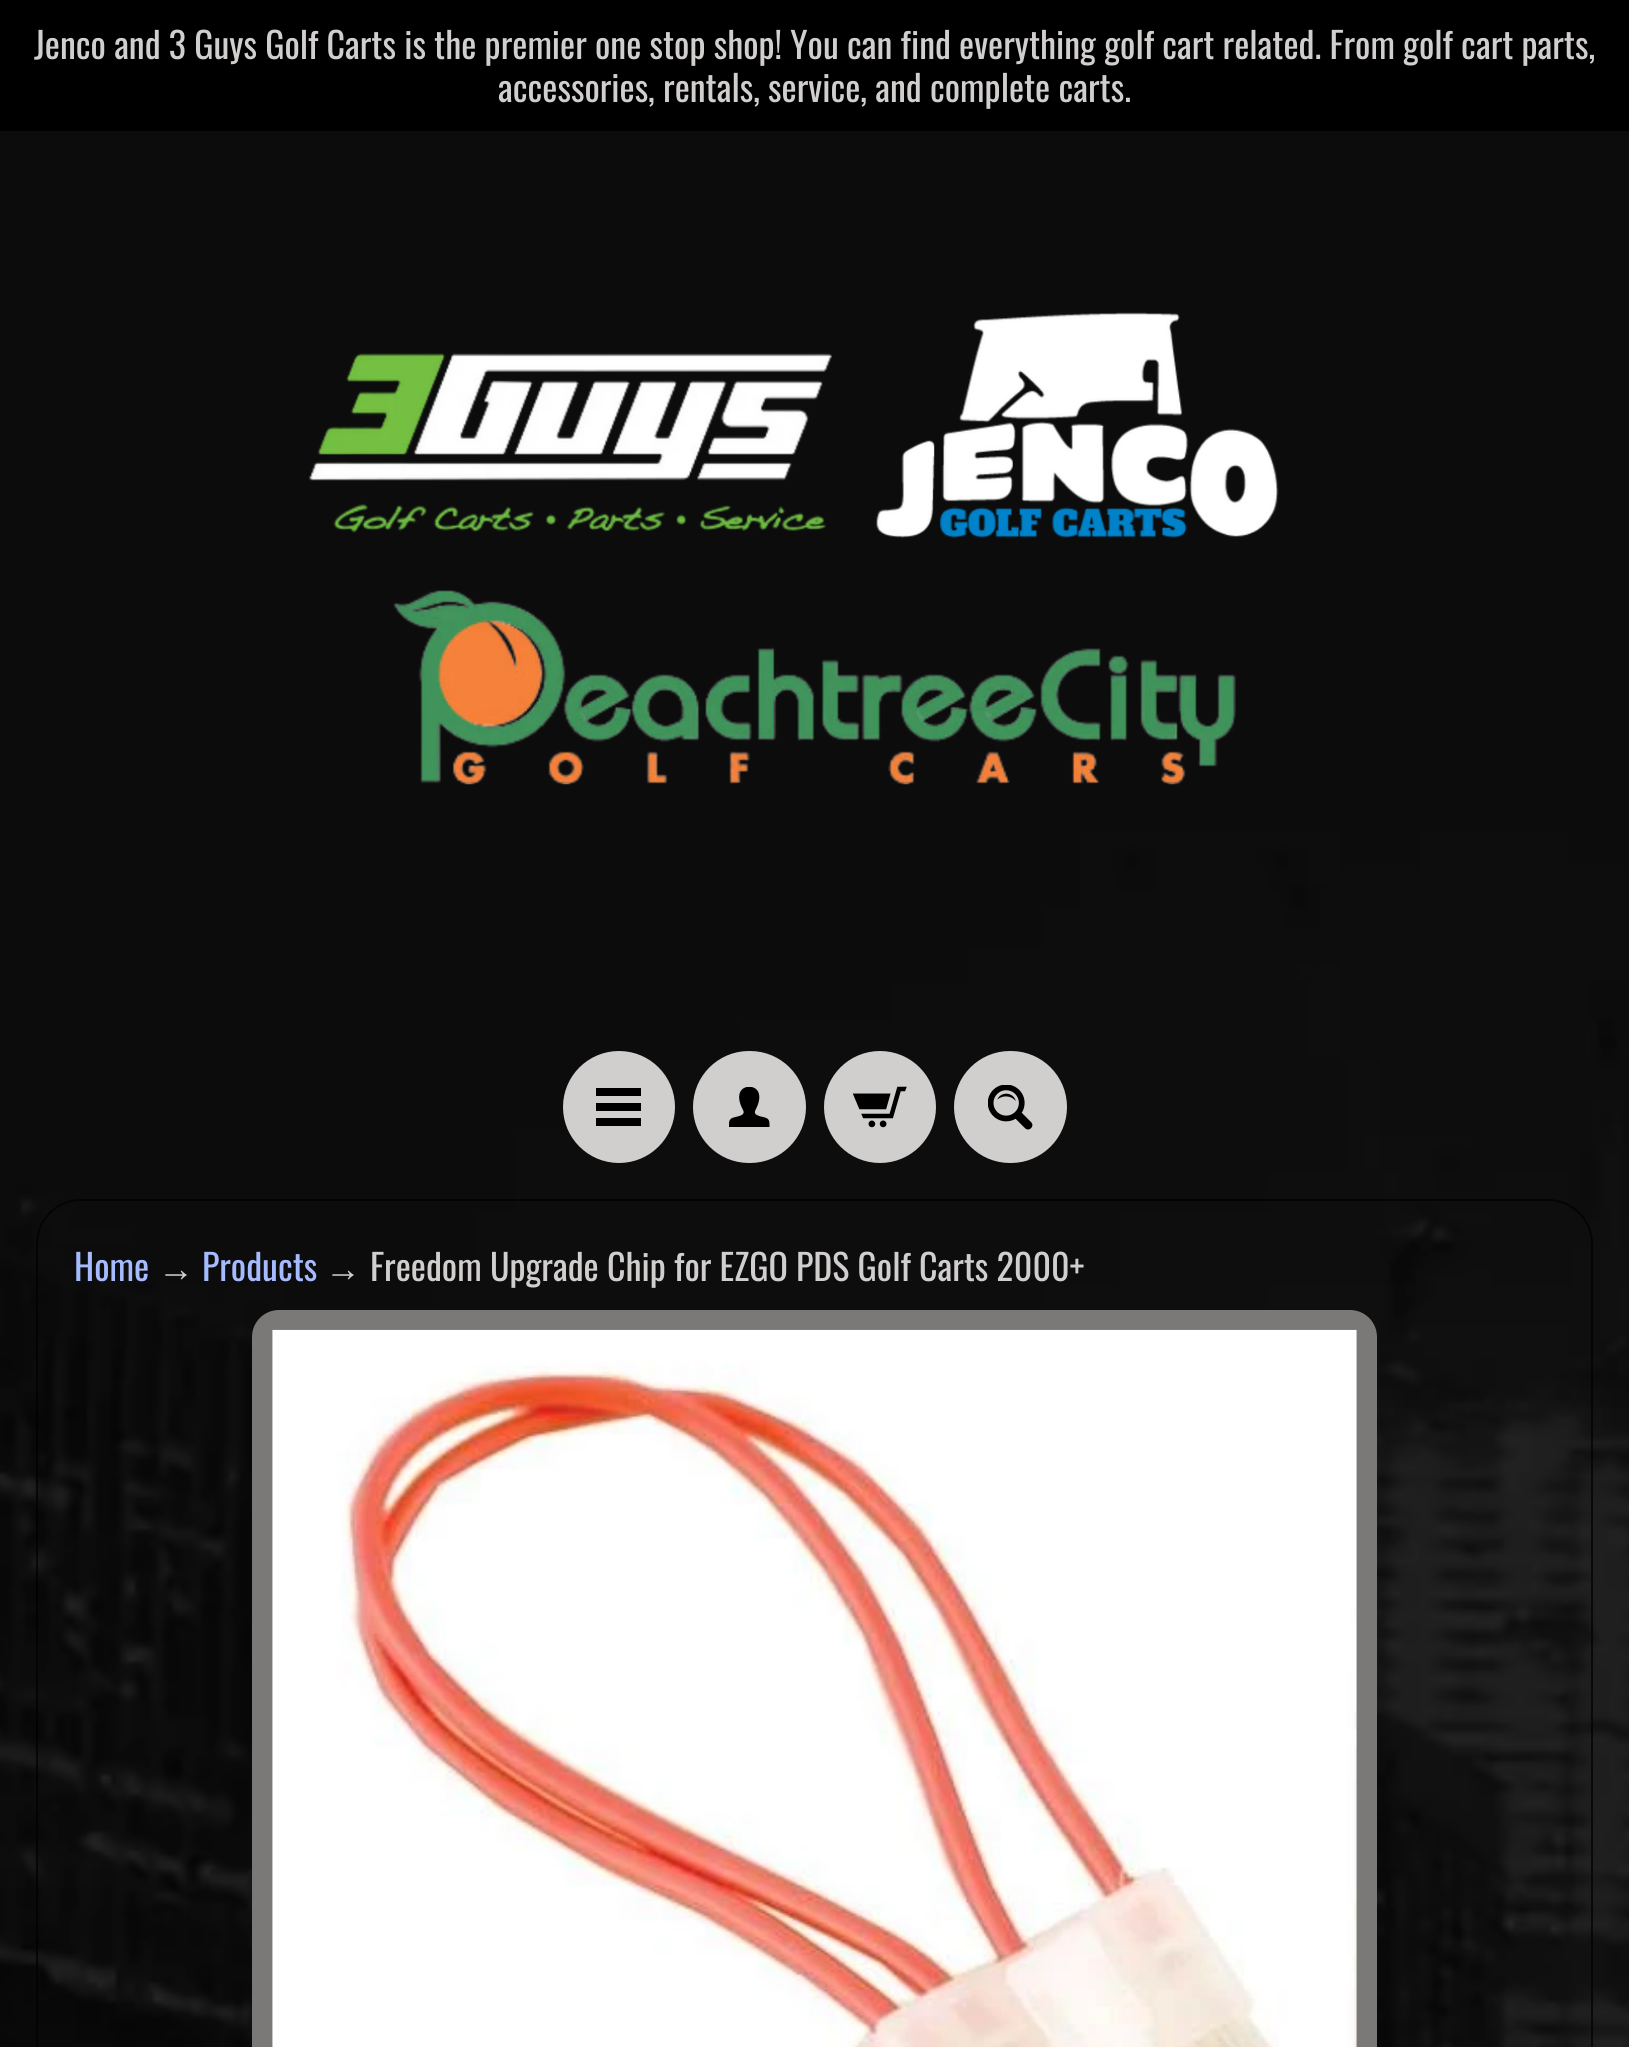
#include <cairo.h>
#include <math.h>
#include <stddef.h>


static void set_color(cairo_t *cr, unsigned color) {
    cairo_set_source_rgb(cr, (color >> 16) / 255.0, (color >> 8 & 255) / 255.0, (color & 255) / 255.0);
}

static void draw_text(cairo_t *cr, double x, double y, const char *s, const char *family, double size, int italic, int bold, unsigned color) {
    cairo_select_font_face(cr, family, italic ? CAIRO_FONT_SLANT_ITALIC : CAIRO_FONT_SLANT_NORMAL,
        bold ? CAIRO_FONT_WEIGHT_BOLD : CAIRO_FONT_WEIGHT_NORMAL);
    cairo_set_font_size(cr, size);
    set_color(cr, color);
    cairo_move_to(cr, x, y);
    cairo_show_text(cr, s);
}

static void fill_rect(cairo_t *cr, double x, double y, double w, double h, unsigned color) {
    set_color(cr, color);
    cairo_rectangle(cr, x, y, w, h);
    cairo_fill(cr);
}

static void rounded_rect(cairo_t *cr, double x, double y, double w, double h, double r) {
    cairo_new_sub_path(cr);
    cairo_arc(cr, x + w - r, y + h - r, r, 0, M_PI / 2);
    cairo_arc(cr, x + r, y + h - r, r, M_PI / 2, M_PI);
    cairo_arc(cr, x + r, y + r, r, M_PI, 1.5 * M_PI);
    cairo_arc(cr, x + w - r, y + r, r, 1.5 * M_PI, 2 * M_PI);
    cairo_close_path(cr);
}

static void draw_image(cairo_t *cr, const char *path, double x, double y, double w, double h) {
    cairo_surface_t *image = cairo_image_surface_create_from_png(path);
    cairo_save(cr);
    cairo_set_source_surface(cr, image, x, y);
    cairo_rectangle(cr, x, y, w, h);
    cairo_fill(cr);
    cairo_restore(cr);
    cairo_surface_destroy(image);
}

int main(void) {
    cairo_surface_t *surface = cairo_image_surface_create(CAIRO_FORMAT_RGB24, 1629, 2047);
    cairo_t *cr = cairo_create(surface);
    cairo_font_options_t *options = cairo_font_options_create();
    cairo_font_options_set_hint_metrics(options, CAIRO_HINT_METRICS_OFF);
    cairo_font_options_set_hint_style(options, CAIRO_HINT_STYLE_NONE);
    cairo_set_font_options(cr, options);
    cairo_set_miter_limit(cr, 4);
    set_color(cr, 0xFFFFFF);
    cairo_paint(cr);
    draw_image(cr, "assets/img1.png", 0, 131, 1629, 1916);
    fill_rect(cr, 0, 0, 1629, 131, 0x000000);
    draw_text(cr, 34, 59, "Jenco and 3 Guys Golf Carts is the premier one stop shop! You can find everything golf cart related. From golf cart parts,", "Oswald", 36, 0, 0, 0xD1CECE);
    draw_text(cr, 498, 102, "accessories, rentals, service, and complete carts.", "Oswald", 36, 0, 0, 0xD1CECE);
    draw_image(cr, "assets/img2.png", 309, 312, 970, 473);
    cairo_arc(cr, 619, 1107, 52.5, 0, 2 * M_PI);
    cairo_fill_preserve(cr);
    cairo_set_line_width(cr, 7);
    cairo_stroke(cr);
    set_color(cr, 0x000000);
    cairo_new_path(cr);
    cairo_move_to(cr, 641, 1096);
    cairo_line_to(cr, 596, 1096);
    cairo_line_to(cr, 596, 1088);
    cairo_line_to(cr, 641, 1088);
    cairo_close_path(cr);
    cairo_move_to(cr, 641, 1103);
    cairo_line_to(cr, 596, 1103);
    cairo_line_to(cr, 596, 1111);
    cairo_line_to(cr, 641, 1111);
    cairo_close_path(cr);
    cairo_move_to(cr, 641, 1118);
    cairo_line_to(cr, 596, 1118);
    cairo_line_to(cr, 596, 1126);
    cairo_line_to(cr, 641, 1126);
    cairo_close_path(cr);
    cairo_fill(cr);
    set_color(cr, 0xD1CECE);
    rounded_rect(cr, 696.5, 1054.5, 106, 105, 52.5);
    cairo_fill_preserve(cr);
    cairo_stroke(cr);
    draw_image(cr, "assets/img3.png", 729, 1087, 41, 40);
    cairo_arc(cr, 880, 1107, 52.5, 0, 2 * M_PI);
    cairo_fill_preserve(cr);
    cairo_stroke(cr);
    draw_image(cr, "assets/img4.png", 853, 1086, 54, 42);
    rounded_rect(cr, 957.5, 1054.5, 106, 105, 52.5);
    cairo_fill_preserve(cr);
    cairo_stroke(cr);
    draw_image(cr, "assets/img5.png", 988, 1085, 45, 45);
    rounded_rect(cr, 37, 1200, 1555, 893, 44);
    cairo_set_source_rgba(cr, 0, 0, 0, 0.7);
    cairo_set_line_width(cr, 2);
    cairo_stroke(cr);
    draw_text(cr, 74, 1281, "Home", "Oswald", 36, 0, 0, 0xA6BBFD);
    draw_text(cr, 158, 1281, "→", "Liberation Sans", 36, 0, 0, 0xD1CECE);
    draw_text(cr, 202, 1281, "Products", "Oswald", 36, 0, 0, 0xA6BBFD);
    draw_text(cr, 325, 1281, "→", "Liberation Sans", 36, 0, 0, 0xD1CECE);
    draw_text(cr, 370, 1281, "Freedom Upgrade Chip for EZGO PDS Golf Carts 2000+", "Oswald", 36, 0, 0, 0xD1CECE);
    set_color(cr, 0x7B7878);
    rounded_rect(cr, 252, 1310, 1125, 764, 27);
    cairo_fill(cr);
    draw_image(cr, "assets/img6.png", 272, 1329, 1085, 718);
    cairo_surface_write_to_png(surface, "output.png");
    cairo_font_options_destroy(options);
    cairo_destroy(cr);
    cairo_surface_destroy(surface);
    return 0;
}
